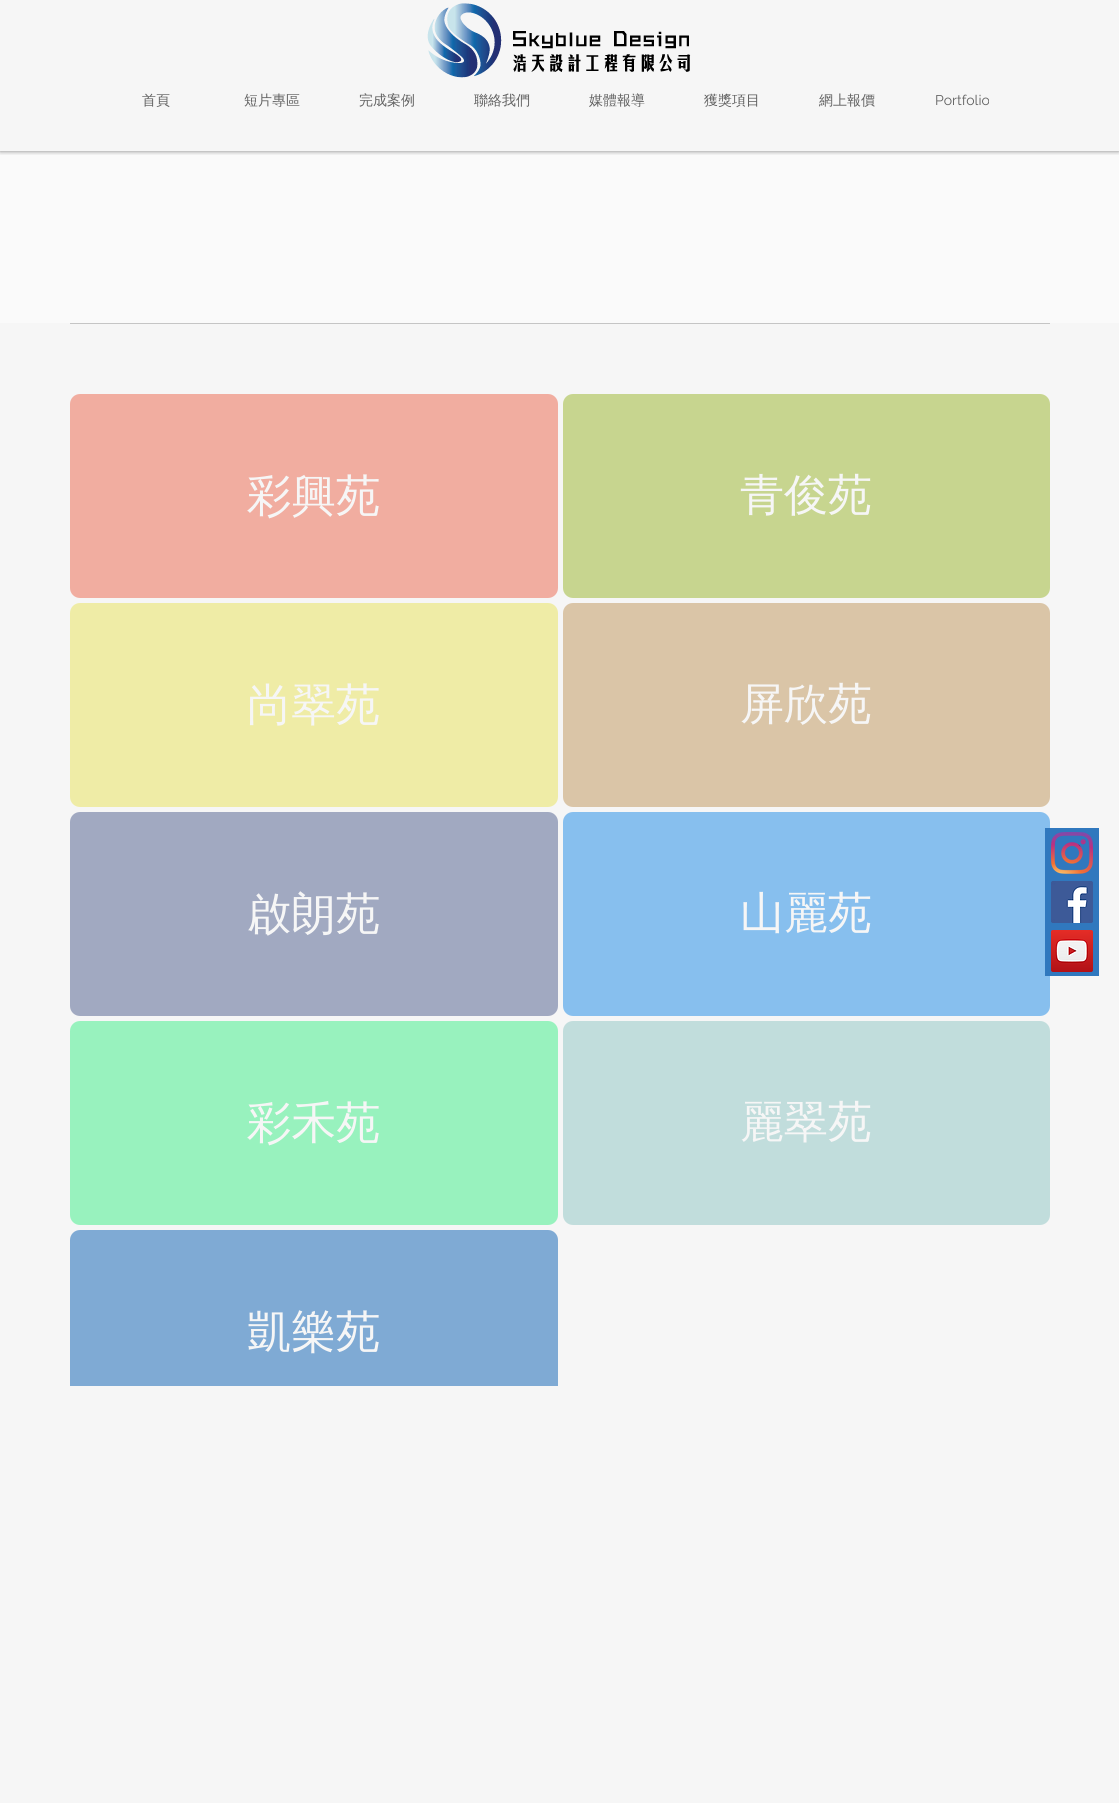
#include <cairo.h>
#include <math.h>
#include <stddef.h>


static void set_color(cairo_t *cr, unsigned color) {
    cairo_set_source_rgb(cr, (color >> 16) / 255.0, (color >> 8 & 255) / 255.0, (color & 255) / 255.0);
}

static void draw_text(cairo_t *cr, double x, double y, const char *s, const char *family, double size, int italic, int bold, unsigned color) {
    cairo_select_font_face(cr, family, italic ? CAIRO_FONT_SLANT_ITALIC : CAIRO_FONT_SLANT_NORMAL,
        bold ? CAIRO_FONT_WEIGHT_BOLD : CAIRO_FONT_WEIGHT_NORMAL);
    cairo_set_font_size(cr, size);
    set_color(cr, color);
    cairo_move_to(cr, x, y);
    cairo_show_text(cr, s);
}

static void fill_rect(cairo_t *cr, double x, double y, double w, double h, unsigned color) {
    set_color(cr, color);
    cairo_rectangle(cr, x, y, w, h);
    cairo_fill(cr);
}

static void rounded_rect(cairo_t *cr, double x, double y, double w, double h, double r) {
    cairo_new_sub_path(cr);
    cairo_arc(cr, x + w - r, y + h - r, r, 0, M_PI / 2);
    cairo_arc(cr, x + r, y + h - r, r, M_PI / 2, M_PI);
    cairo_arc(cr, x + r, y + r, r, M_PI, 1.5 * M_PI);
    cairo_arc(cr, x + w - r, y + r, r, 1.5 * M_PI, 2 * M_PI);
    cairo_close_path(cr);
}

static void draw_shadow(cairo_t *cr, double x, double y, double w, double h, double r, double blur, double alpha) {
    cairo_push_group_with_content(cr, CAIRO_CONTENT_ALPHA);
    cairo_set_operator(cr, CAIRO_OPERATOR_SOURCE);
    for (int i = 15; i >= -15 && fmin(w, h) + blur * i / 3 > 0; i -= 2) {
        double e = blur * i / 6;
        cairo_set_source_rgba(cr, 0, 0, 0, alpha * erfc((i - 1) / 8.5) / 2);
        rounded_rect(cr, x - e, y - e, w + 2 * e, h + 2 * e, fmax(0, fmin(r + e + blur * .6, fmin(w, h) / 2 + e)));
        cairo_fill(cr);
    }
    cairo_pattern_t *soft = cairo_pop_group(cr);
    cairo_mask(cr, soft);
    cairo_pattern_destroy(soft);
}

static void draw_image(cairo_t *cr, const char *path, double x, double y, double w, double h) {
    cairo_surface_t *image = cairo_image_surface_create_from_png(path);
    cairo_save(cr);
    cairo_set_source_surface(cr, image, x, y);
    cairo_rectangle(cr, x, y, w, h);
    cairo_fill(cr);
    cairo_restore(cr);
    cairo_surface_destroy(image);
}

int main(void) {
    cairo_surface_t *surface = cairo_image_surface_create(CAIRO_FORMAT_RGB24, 1119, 1803);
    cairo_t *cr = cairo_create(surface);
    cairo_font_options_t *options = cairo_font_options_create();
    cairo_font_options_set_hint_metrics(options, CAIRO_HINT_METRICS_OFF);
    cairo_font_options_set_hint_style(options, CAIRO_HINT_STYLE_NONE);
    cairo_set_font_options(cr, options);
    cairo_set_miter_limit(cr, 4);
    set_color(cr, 0xF6F6F6);
    cairo_paint(cr);
    fill_rect(cr, 0, 151, 1119, 172, 0xFAFAFA);
    cairo_save(cr);
    cairo_rectangle(cr, 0, 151, 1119, 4);
    cairo_clip(cr);
    set_color(cr, 0x000000);
    draw_shadow(cr, 0, 0, 1119, 151, 0, 2.5, 0.5);
    cairo_restore(cr);
    draw_image(cr, "assets/img1.png", 427, 3, 264, 75);
    draw_text(cr, 142, 105, "首頁", "WenQuanYi Zen Hei Medium", 14, 0, 0, 0x626262);
    draw_text(cr, 244, 105, "短片專區", "WenQuanYi Zen Hei Medium", 14, 0, 0, 0x626262);
    draw_text(cr, 359, 105, "完成案例", "WenQuanYi Zen Hei Medium", 14, 0, 0, 0x626262);
    draw_text(cr, 474, 105, "聯絡我們", "WenQuanYi Zen Hei Medium", 14, 0, 0, 0x626262);
    draw_text(cr, 589, 105, "媒體報導", "WenQuanYi Zen Hei Medium", 14, 0, 0, 0x626262);
    draw_text(cr, 704, 105, "獲獎項目", "WenQuanYi Zen Hei Medium", 14, 0, 0, 0x626262);
    draw_text(cr, 819, 105, "網上報價", "WenQuanYi Zen Hei Medium", 14, 0, 0, 0x626262);
    draw_text(cr, 935, 105, "Portfolio", "Raleway", 14, 0, 0, 0x626262);
    fill_rect(cr, 70, 323, 980, 1, 0xC5C5C5);
    set_color(cr, 0xF1ADA0);
    rounded_rect(cr, 70, 394, 488, 204, 10);
    cairo_fill(cr);
    draw_text(cr, 247, 511, "彩興苑", "WenQuanYi Zen Hei Medium", 44.5, 0, 0, 0xF6F6F6);
    set_color(cr, 0xC7D58F);
    rounded_rect(cr, 563, 394, 487, 204, 10);
    cairo_fill(cr);
    draw_text(cr, 740, 510, "青俊苑", "WenQuanYi Zen Hei Medium", 44, 0, 0, 0xF6F6F6);
    set_color(cr, 0xEFECA6);
    rounded_rect(cr, 70, 603, 488, 204, 10);
    cairo_fill(cr);
    draw_text(cr, 247, 720, "尚翠苑", "WenQuanYi Zen Hei Medium", 44.5, 0, 0, 0xF6F6F6);
    set_color(cr, 0xDAC5A7);
    rounded_rect(cr, 563, 603, 487, 204, 10);
    cairo_fill(cr);
    draw_text(cr, 740, 719, "屏欣苑", "WenQuanYi Zen Hei Medium", 44, 0, 0, 0xF6F6F6);
    set_color(cr, 0xA1A9C1);
    rounded_rect(cr, 70, 812, 488, 204, 10);
    cairo_fill(cr);
    draw_text(cr, 247, 929, "啟朗苑", "WenQuanYi Zen Hei Medium", 44.5, 0, 0, 0xF6F6F6);
    set_color(cr, 0x87BFEE);
    rounded_rect(cr, 563, 812, 487, 204, 10);
    cairo_fill(cr);
    draw_text(cr, 740, 928, "山麗苑", "WenQuanYi Zen Hei Medium", 44, 0, 0, 0xF6F6F6);
    set_color(cr, 0x98F2BE);
    rounded_rect(cr, 70, 1021, 488, 204, 10);
    cairo_fill(cr);
    draw_text(cr, 247, 1138, "彩禾苑", "WenQuanYi Zen Hei Medium", 44.5, 0, 0, 0xF6F6F6);
    set_color(cr, 0xC1DDDC);
    rounded_rect(cr, 563, 1021, 487, 204, 10);
    cairo_fill(cr);
    draw_text(cr, 740, 1137, "麗翠苑", "WenQuanYi Zen Hei Medium", 44, 0, 0, 0xF6F6F6);
    set_color(cr, 0x7FAAD4);
    rounded_rect(cr, 70, 1230, 488, 204, 10);
    cairo_fill(cr);
    draw_text(cr, 247, 1347, "凱樂苑", "WenQuanYi Zen Hei Medium", 44.5, 0, 0, 0xF6F6F6);
    fill_rect(cr, 1045, 828, 54, 148, 0x3078BE);
    draw_image(cr, "assets/img2.png", 1051, 832, 42, 42);
    draw_image(cr, "assets/img3.png", 1051, 881, 42, 42);
    draw_image(cr, "assets/img4.png", 1051, 930, 42, 42);
    fill_rect(cr, 70, 1386, 488, 48, 0xF6F6F6);
    cairo_surface_write_to_png(surface, "output.png");
    cairo_font_options_destroy(options);
    cairo_destroy(cr);
    cairo_surface_destroy(surface);
    return 0;
}
